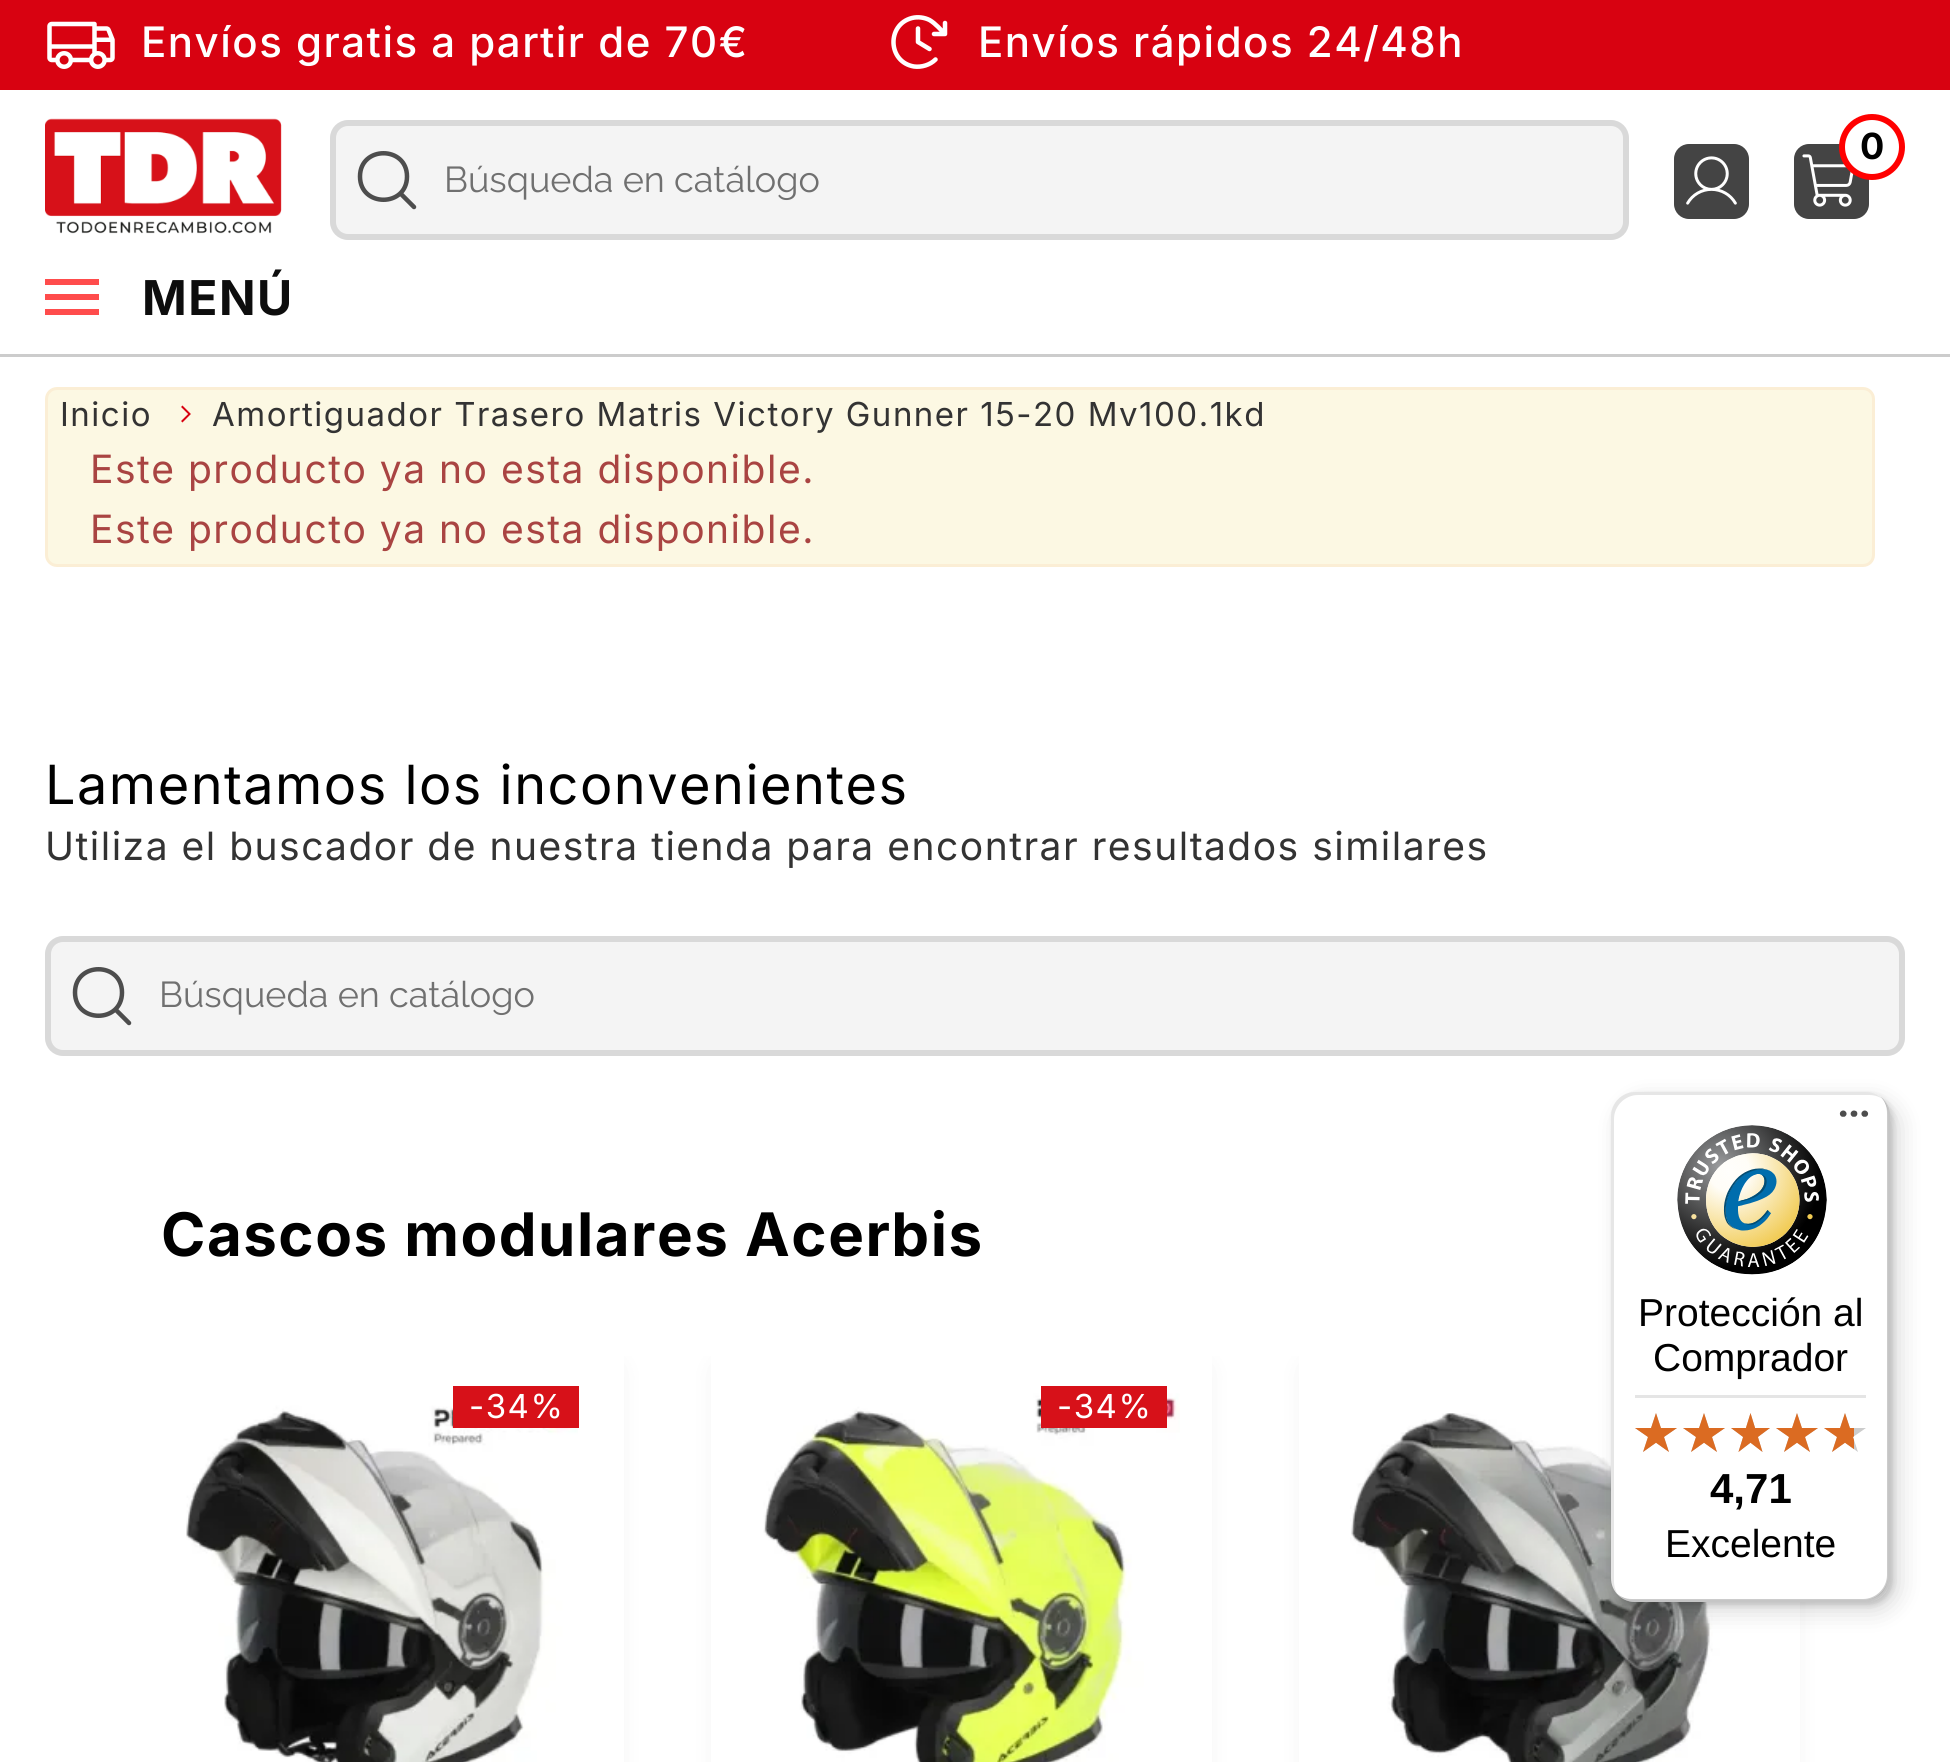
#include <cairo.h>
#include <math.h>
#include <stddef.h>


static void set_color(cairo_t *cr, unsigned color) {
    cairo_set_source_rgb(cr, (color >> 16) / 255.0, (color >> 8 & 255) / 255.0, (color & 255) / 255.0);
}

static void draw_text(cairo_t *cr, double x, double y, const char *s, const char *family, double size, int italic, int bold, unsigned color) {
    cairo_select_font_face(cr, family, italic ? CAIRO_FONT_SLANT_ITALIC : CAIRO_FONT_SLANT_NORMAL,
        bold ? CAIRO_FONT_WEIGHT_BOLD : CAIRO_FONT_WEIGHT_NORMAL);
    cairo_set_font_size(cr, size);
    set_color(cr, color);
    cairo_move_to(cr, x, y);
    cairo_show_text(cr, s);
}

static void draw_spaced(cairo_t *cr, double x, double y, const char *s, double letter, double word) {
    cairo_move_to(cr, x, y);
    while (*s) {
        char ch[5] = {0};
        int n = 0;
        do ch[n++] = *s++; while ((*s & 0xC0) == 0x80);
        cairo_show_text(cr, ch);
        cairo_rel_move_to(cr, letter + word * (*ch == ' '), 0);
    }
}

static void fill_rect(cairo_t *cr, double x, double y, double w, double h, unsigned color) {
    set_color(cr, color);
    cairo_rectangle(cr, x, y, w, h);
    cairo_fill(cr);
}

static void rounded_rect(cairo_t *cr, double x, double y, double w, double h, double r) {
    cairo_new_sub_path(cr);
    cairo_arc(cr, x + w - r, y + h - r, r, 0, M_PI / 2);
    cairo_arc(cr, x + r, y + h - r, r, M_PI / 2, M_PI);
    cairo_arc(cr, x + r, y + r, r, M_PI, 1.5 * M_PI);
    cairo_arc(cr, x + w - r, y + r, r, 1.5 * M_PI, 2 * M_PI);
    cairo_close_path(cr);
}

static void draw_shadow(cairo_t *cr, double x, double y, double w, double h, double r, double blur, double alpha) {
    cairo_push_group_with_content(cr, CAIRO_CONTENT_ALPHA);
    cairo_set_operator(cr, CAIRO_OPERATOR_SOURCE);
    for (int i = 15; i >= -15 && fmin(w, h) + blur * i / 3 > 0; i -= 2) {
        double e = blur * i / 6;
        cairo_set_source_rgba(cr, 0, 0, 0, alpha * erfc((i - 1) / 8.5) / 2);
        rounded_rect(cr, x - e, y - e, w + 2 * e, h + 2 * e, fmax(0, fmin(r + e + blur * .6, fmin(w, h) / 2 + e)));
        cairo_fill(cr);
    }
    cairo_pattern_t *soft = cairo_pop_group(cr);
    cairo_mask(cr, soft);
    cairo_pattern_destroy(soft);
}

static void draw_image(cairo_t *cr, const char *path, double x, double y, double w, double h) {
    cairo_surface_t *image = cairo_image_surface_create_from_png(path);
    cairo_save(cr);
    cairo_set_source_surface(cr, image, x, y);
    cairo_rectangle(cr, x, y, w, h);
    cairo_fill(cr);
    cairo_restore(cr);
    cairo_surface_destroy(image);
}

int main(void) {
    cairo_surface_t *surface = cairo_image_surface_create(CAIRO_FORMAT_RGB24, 1950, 1762);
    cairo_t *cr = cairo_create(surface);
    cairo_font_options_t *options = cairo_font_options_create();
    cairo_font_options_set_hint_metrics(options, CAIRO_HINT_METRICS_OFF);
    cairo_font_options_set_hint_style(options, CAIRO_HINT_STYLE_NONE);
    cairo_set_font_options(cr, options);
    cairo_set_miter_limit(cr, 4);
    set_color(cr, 0xFFFFFF);
    cairo_paint(cr);
    fill_rect(cr, 0, 0, 1950, 90, 0xD80211);
    draw_image(cr, "assets/img1.png", 47, 21, 68, 48);
    cairo_select_font_face(cr, "Inter Medium", CAIRO_FONT_SLANT_NORMAL, CAIRO_FONT_WEIGHT_NORMAL);
    cairo_set_font_size(cr, 42);
    set_color(cr, 0xFFFFFF);
    draw_spaced(cr, 141, 57, "Envíos gratis a partir de 70€", 1.5, 0);
    cairo_new_path(cr);
    cairo_move_to(cr, 929.5, 49);
    cairo_line_to(cr, 918, 42);
    cairo_line_to(cr, 918, 28.5);
    cairo_move_to(cr, 934, 34);
    cairo_line_to(cr, 945, 34);
    cairo_move_to(cr, 945, 34);
    cairo_line_to(cr, 945, 23);
    cairo_move_to(cr, 945, 34);
    cairo_curve_to(cr, 940.5, 29.5, 935.5, 23.5, 929.5, 20);
    cairo_curve_to(cr, 924.5, 17.5, 918, 16.5, 912, 18);
    cairo_curve_to(cr, 886.5, 24.5, 887.5, 62, 914, 66.5);
    cairo_curve_to(cr, 921.5, 67.5, 930, 65, 935.5, 59.5);
    cairo_set_line_width(cr, 4.5);
    cairo_set_line_cap(cr, CAIRO_LINE_CAP_ROUND);
    cairo_set_line_join(cr, CAIRO_LINE_JOIN_ROUND);
    cairo_stroke(cr);
    draw_spaced(cr, 978, 57, "Envíos rápidos 24/48h", 1.5, 0);
    draw_image(cr, "assets/img2.png", 45, 118, 237, 116);
    set_color(cr, 0x444444);
    rounded_rect(cr, 1674, 144, 75, 75, 15);
    cairo_fill(cr);
    draw_image(cr, "assets/img3.png", 1686, 156, 51, 49);
    rounded_rect(cr, 1794, 144, 75, 75, 15);
    cairo_fill(cr);
    draw_image(cr, "assets/img4.png", 1802, 154, 52, 53);
    set_color(cr, 0xFFFFFF);
    cairo_arc(cr, 1872, 147, 30, 0, 2 * M_PI);
    cairo_fill_preserve(cr);
    set_color(cr, 0xFF0000);
    cairo_set_line_width(cr, 6);
    cairo_set_line_cap(cr, CAIRO_LINE_CAP_BUTT);
    cairo_set_line_join(cr, CAIRO_LINE_JOIN_MITER);
    cairo_stroke(cr);
    cairo_select_font_face(cr, "Inter", CAIRO_FONT_SLANT_NORMAL, CAIRO_FONT_WEIGHT_BOLD);
    cairo_set_font_size(cr, 36);
    set_color(cr, 0x000000);
    draw_spaced(cr, 1860, 159, "0", 1.5, 0);
    set_color(cr, 0xF4F4F4);
    rounded_rect(cr, 333, 123, 1293, 114, 15);
    cairo_fill_preserve(cr);
    set_color(cr, 0xD9D9D9);
    cairo_stroke(cr);
    cairo_new_path(cr);
    cairo_move_to(cr, 400.5, 193.5);
    cairo_line_to(cr, 414, 207);
    cairo_move_to(cr, 407, 176.5);
    cairo_curve_to(cr, 407, 207.5, 360, 207.5, 360, 176.5);
    cairo_curve_to(cr, 360, 145.5, 407, 145.5, 407, 176.5);
    cairo_close_path(cr);
    set_color(cr, 0x4D4D4D);
    cairo_set_line_width(cr, 4.5);
    cairo_set_line_cap(cr, CAIRO_LINE_CAP_ROUND);
    cairo_set_line_join(cr, CAIRO_LINE_JOIN_ROUND);
    cairo_stroke(cr);
    draw_text(cr, 444, 192, "Búsqueda en catálogo", "Raleway", 36, 0, 0, 0x707070);
    fill_rect(cr, 0, 354, 1950, 3, 0xCCCCCC);
    fill_rect(cr, 45, 279, 54, 6, 0xFF4C4C);
    fill_rect(cr, 45, 294, 54, 6, 0xFF4C4C);
    fill_rect(cr, 45, 309, 54, 6, 0xFF4C4C);
    cairo_select_font_face(cr, "Inter", CAIRO_FONT_SLANT_NORMAL, CAIRO_FONT_WEIGHT_BOLD);
    cairo_set_font_size(cr, 48);
    set_color(cr, 0x0D0D0D);
    draw_spaced(cr, 142, 315, "MENÚ", 1.5, 0);
    set_color(cr, 0xFCF8E3);
    rounded_rect(cr, 46.5, 388.5, 1827, 177, 10.5);
    cairo_fill_preserve(cr);
    set_color(cr, 0xFBEED5);
    cairo_set_line_width(cr, 3);
    cairo_set_line_cap(cr, CAIRO_LINE_CAP_BUTT);
    cairo_set_line_join(cr, CAIRO_LINE_JOIN_MITER);
    cairo_stroke(cr);
    cairo_select_font_face(cr, "Inter", CAIRO_FONT_SLANT_NORMAL, CAIRO_FONT_WEIGHT_NORMAL);
    cairo_set_font_size(cr, 33);
    set_color(cr, 0x333333);
    draw_spaced(cr, 60, 426, "Inicio", 1.5, 0);
    draw_image(cr, "assets/img5.png", 181, 405, 10, 18);
    draw_spaced(cr, 212, 426, "Amortiguador Trasero Matris Victory Gunner 15-20 Mv100.1kd", 1.5, 0);
    cairo_set_font_size(cr, 39);
    set_color(cr, 0xA94442);
    draw_spaced(cr, 90, 483, "Este producto ya no esta disponible.", 1.5, 0);
    draw_spaced(cr, 90, 543, "Este producto ya no esta disponible.", 1.5, 0);
    cairo_set_font_size(cr, 54);
    set_color(cr, 0x000000);
    draw_spaced(cr, 45, 804, "Lamentamos los inconvenientes", 1.5, 0);
    cairo_set_font_size(cr, 39);
    set_color(cr, 0x333333);
    draw_spaced(cr, 45, 860, "Utiliza el buscador de nuestra tienda para encontrar resultados similares", 1.5, 0);
    set_color(cr, 0xF4F4F4);
    rounded_rect(cr, 48, 939, 1854, 114, 15);
    cairo_fill_preserve(cr);
    set_color(cr, 0xD9D9D9);
    cairo_set_line_width(cr, 6);
    cairo_stroke(cr);
    cairo_new_path(cr);
    cairo_move_to(cr, 115.5, 1009.5);
    cairo_line_to(cr, 129, 1023);
    cairo_move_to(cr, 122, 992.5);
    cairo_curve_to(cr, 122, 1023.5, 75, 1023.5, 75, 992.5);
    cairo_curve_to(cr, 75, 961.5, 122, 961.5, 122, 992.5);
    cairo_close_path(cr);
    set_color(cr, 0x4D4D4D);
    cairo_set_line_width(cr, 4.5);
    cairo_set_line_cap(cr, CAIRO_LINE_CAP_ROUND);
    cairo_set_line_join(cr, CAIRO_LINE_JOIN_ROUND);
    cairo_stroke(cr);
    draw_text(cr, 159, 1007, "Búsqueda en catálogo", "Raleway", 36, 0, 0, 0x707070);
    cairo_select_font_face(cr, "Inter", CAIRO_FONT_SLANT_NORMAL, CAIRO_FONT_WEIGHT_BOLD);
    cairo_set_font_size(cr, 60);
    set_color(cr, 0x000000);
    draw_spaced(cr, 161, 1256, "Cascos modulares Acerbis", 1.5, 0);
    cairo_save(cr);
    cairo_rectangle(cr, 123, 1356, 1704, 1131);
    cairo_clip(cr);
    set_color(cr, 0x000000);
    draw_shadow(cr, 135, 1368, 477, 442, 3, 15, 0.1);
    cairo_restore(cr);
    fill_rect(cr, 123, 1356, 501, 406, 0xFFFFFF);
    draw_image(cr, "assets/img6.png", 186, 1405, 392, 357);
    fill_rect(cr, 453, 1386, 126, 42, 0xD71119);
    cairo_select_font_face(cr, "Inter", CAIRO_FONT_SLANT_NORMAL, CAIRO_FONT_WEIGHT_NORMAL);
    cairo_set_font_size(cr, 33);
    set_color(cr, 0xFFFFFF);
    draw_spaced(cr, 469, 1418, "-34%", 1.5, 0);
    cairo_save(cr);
    cairo_rectangle(cr, 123, 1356, 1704, 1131);
    cairo_clip(cr);
    set_color(cr, 0x000000);
    draw_shadow(cr, 723, 1368, 477, 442, 3, 15, 0.1);
    cairo_restore(cr);
    fill_rect(cr, 711, 1356, 501, 406, 0xFFFFFF);
    draw_image(cr, "assets/img7.png", 763, 1393, 417, 369);
    fill_rect(cr, 1041, 1386, 126, 42, 0xD71119);
    set_color(cr, 0xFFFFFF);
    draw_spaced(cr, 1057, 1418, "-34%", 1.5, 0);
    cairo_save(cr);
    cairo_rectangle(cr, 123, 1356, 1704, 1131);
    cairo_clip(cr);
    set_color(cr, 0x000000);
    draw_shadow(cr, 1311, 1368, 477, 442, 3, 15, 0.1);
    cairo_restore(cr);
    fill_rect(cr, 1299, 1356, 501, 406, 0xFFFFFF);
    draw_image(cr, "assets/img8.png", 1350, 1394, 417, 368);
    set_color(cr, 0x000000);
    draw_shadow(cr, 1620, 1101, 279, 510, 24, 12, 0.15);
    draw_shadow(cr, 1614, 1095, 279, 510, 24, 3, 0.15);
    set_color(cr, 0xFFFFFF);
    rounded_rect(cr, 1611, 1092, 279, 510, 24);
    cairo_fill(cr);
    cairo_set_source_rgba(cr, 0, 0, 0, 0.1);
    cairo_new_path(cr);
    cairo_move_to(cr, 1638, 1095);
    cairo_line_to(cr, 1869, 1095);
    cairo_curve_to(cr, 1875, 1095, 1881, 1097, 1885, 1101);
    cairo_curve_to(cr, 1880, 1096, 1874, 1092, 1866, 1092);
    cairo_line_to(cr, 1635, 1092);
    cairo_curve_to(cr, 1622, 1092, 1611, 1103, 1611, 1116);
    cairo_line_to(cr, 1611, 1578);
    cairo_curve_to(cr, 1611, 1586, 1615, 1592, 1620, 1597);
    cairo_curve_to(cr, 1616, 1593, 1614, 1587, 1614, 1581);
    cairo_line_to(cr, 1614, 1119);
    cairo_curve_to(cr, 1614, 1106, 1625, 1095, 1638, 1095);
    cairo_close_path(cr);
    cairo_fill(cr);
    cairo_set_source_rgba(cr, 0, 0, 0, 0.2);
    cairo_new_path(cr);
    cairo_move_to(cr, 1616, 1593);
    cairo_curve_to(cr, 1621, 1598, 1627, 1602, 1635, 1602);
    cairo_line_to(cr, 1866, 1602);
    cairo_curve_to(cr, 1879, 1602, 1890, 1591, 1890, 1578);
    cairo_line_to(cr, 1890, 1116);
    cairo_curve_to(cr, 1890, 1108, 1886, 1102, 1881, 1097);
    cairo_curve_to(cr, 1885, 1101, 1887, 1107, 1887, 1113);
    cairo_line_to(cr, 1887, 1575);
    cairo_curve_to(cr, 1887, 1588, 1876, 1599, 1863, 1599);
    cairo_line_to(cr, 1632, 1599);
    cairo_curve_to(cr, 1626, 1599, 1620, 1597, 1616, 1593);
    cairo_close_path(cr);
    cairo_fill(cr);
    cairo_set_source_rgba(cr, 0.196, 0.196, 0.196, 0.2);
    cairo_new_path(cr);
    cairo_move_to(cr, 1616, 1593);
    cairo_curve_to(cr, 1621, 1599, 1627, 1602, 1635, 1602);
    cairo_line_to(cr, 1866, 1602);
    cairo_curve_to(cr, 1879, 1602, 1890, 1591, 1890, 1578);
    cairo_line_to(cr, 1890, 1116);
    cairo_curve_to(cr, 1890, 1108, 1887, 1102, 1881, 1097);
    cairo_curve_to(cr, 1885, 1102, 1888, 1108, 1888, 1114);
    cairo_line_to(cr, 1888, 1576);
    cairo_curve_to(cr, 1888, 1589, 1877, 1600, 1864, 1600);
    cairo_line_to(cr, 1633, 1600);
    cairo_curve_to(cr, 1627, 1600, 1621, 1597, 1616, 1593);
    cairo_close_path(cr);
    cairo_fill(cr);
    cairo_set_source_rgba(cr, 1, 1, 1, 0.3);
    cairo_new_path(cr);
    cairo_move_to(cr, 1615, 1591);
    cairo_curve_to(cr, 1619, 1598, 1627, 1602, 1635, 1602);
    cairo_line_to(cr, 1866, 1602);
    cairo_curve_to(cr, 1879, 1602, 1890, 1591, 1890, 1578);
    cairo_line_to(cr, 1890, 1116);
    cairo_curve_to(cr, 1890, 1109, 1887, 1103, 1883, 1099);
    cairo_curve_to(cr, 1886, 1103, 1888, 1108, 1888, 1114);
    cairo_line_to(cr, 1888, 1576);
    cairo_curve_to(cr, 1888, 1590, 1878, 1600, 1864, 1600);
    cairo_line_to(cr, 1634, 1600);
    cairo_curve_to(cr, 1626, 1600, 1619, 1597, 1615, 1591);
    cairo_close_path(cr);
    cairo_fill(cr);
    draw_image(cr, "assets/img9.png", 1839, 1110, 30, 7);
    draw_image(cr, "assets/img10.png", 1677, 1125, 150, 150);
    draw_text(cr, 1638, 1326, "Protección al", "Liberation Sans", 39, 0, 0, 0x000000);
    draw_text(cr, 1653, 1371, "Comprador", "Liberation Sans", 39, 0, 0, 0x000000);
    fill_rect(cr, 1635, 1395, 231, 3, 0xE5E5E5);
    draw_image(cr, "assets/img11.png", 1635, 1413, 42, 39);
    draw_image(cr, "assets/img11.png", 1683, 1413, 42, 39);
    draw_image(cr, "assets/img12.png", 1731, 1413, 39, 39);
    draw_image(cr, "assets/img11.png", 1776, 1413, 42, 39);
    draw_image(cr, "assets/img11.png", 1824, 1413, 42, 39);
    draw_image(cr, "assets/img13.png", 1635, 1413, 42, 39);
    draw_image(cr, "assets/img13.png", 1683, 1413, 42, 39);
    draw_image(cr, "assets/img14.png", 1731, 1413, 39, 39);
    draw_image(cr, "assets/img13.png", 1776, 1413, 42, 39);
    draw_image(cr, "assets/img15.png", 1824, 1413, 30, 39);
    draw_text(cr, 1710, 1503, "4,71", "Liberation Sans", 42, 0, 1, 0x000000);
    draw_text(cr, 1665, 1557, "Excelente", "Liberation Sans", 39, 0, 0, 0x000000);
    cairo_surface_write_to_png(surface, "output.png");
    cairo_font_options_destroy(options);
    cairo_destroy(cr);
    cairo_surface_destroy(surface);
    return 0;
}
